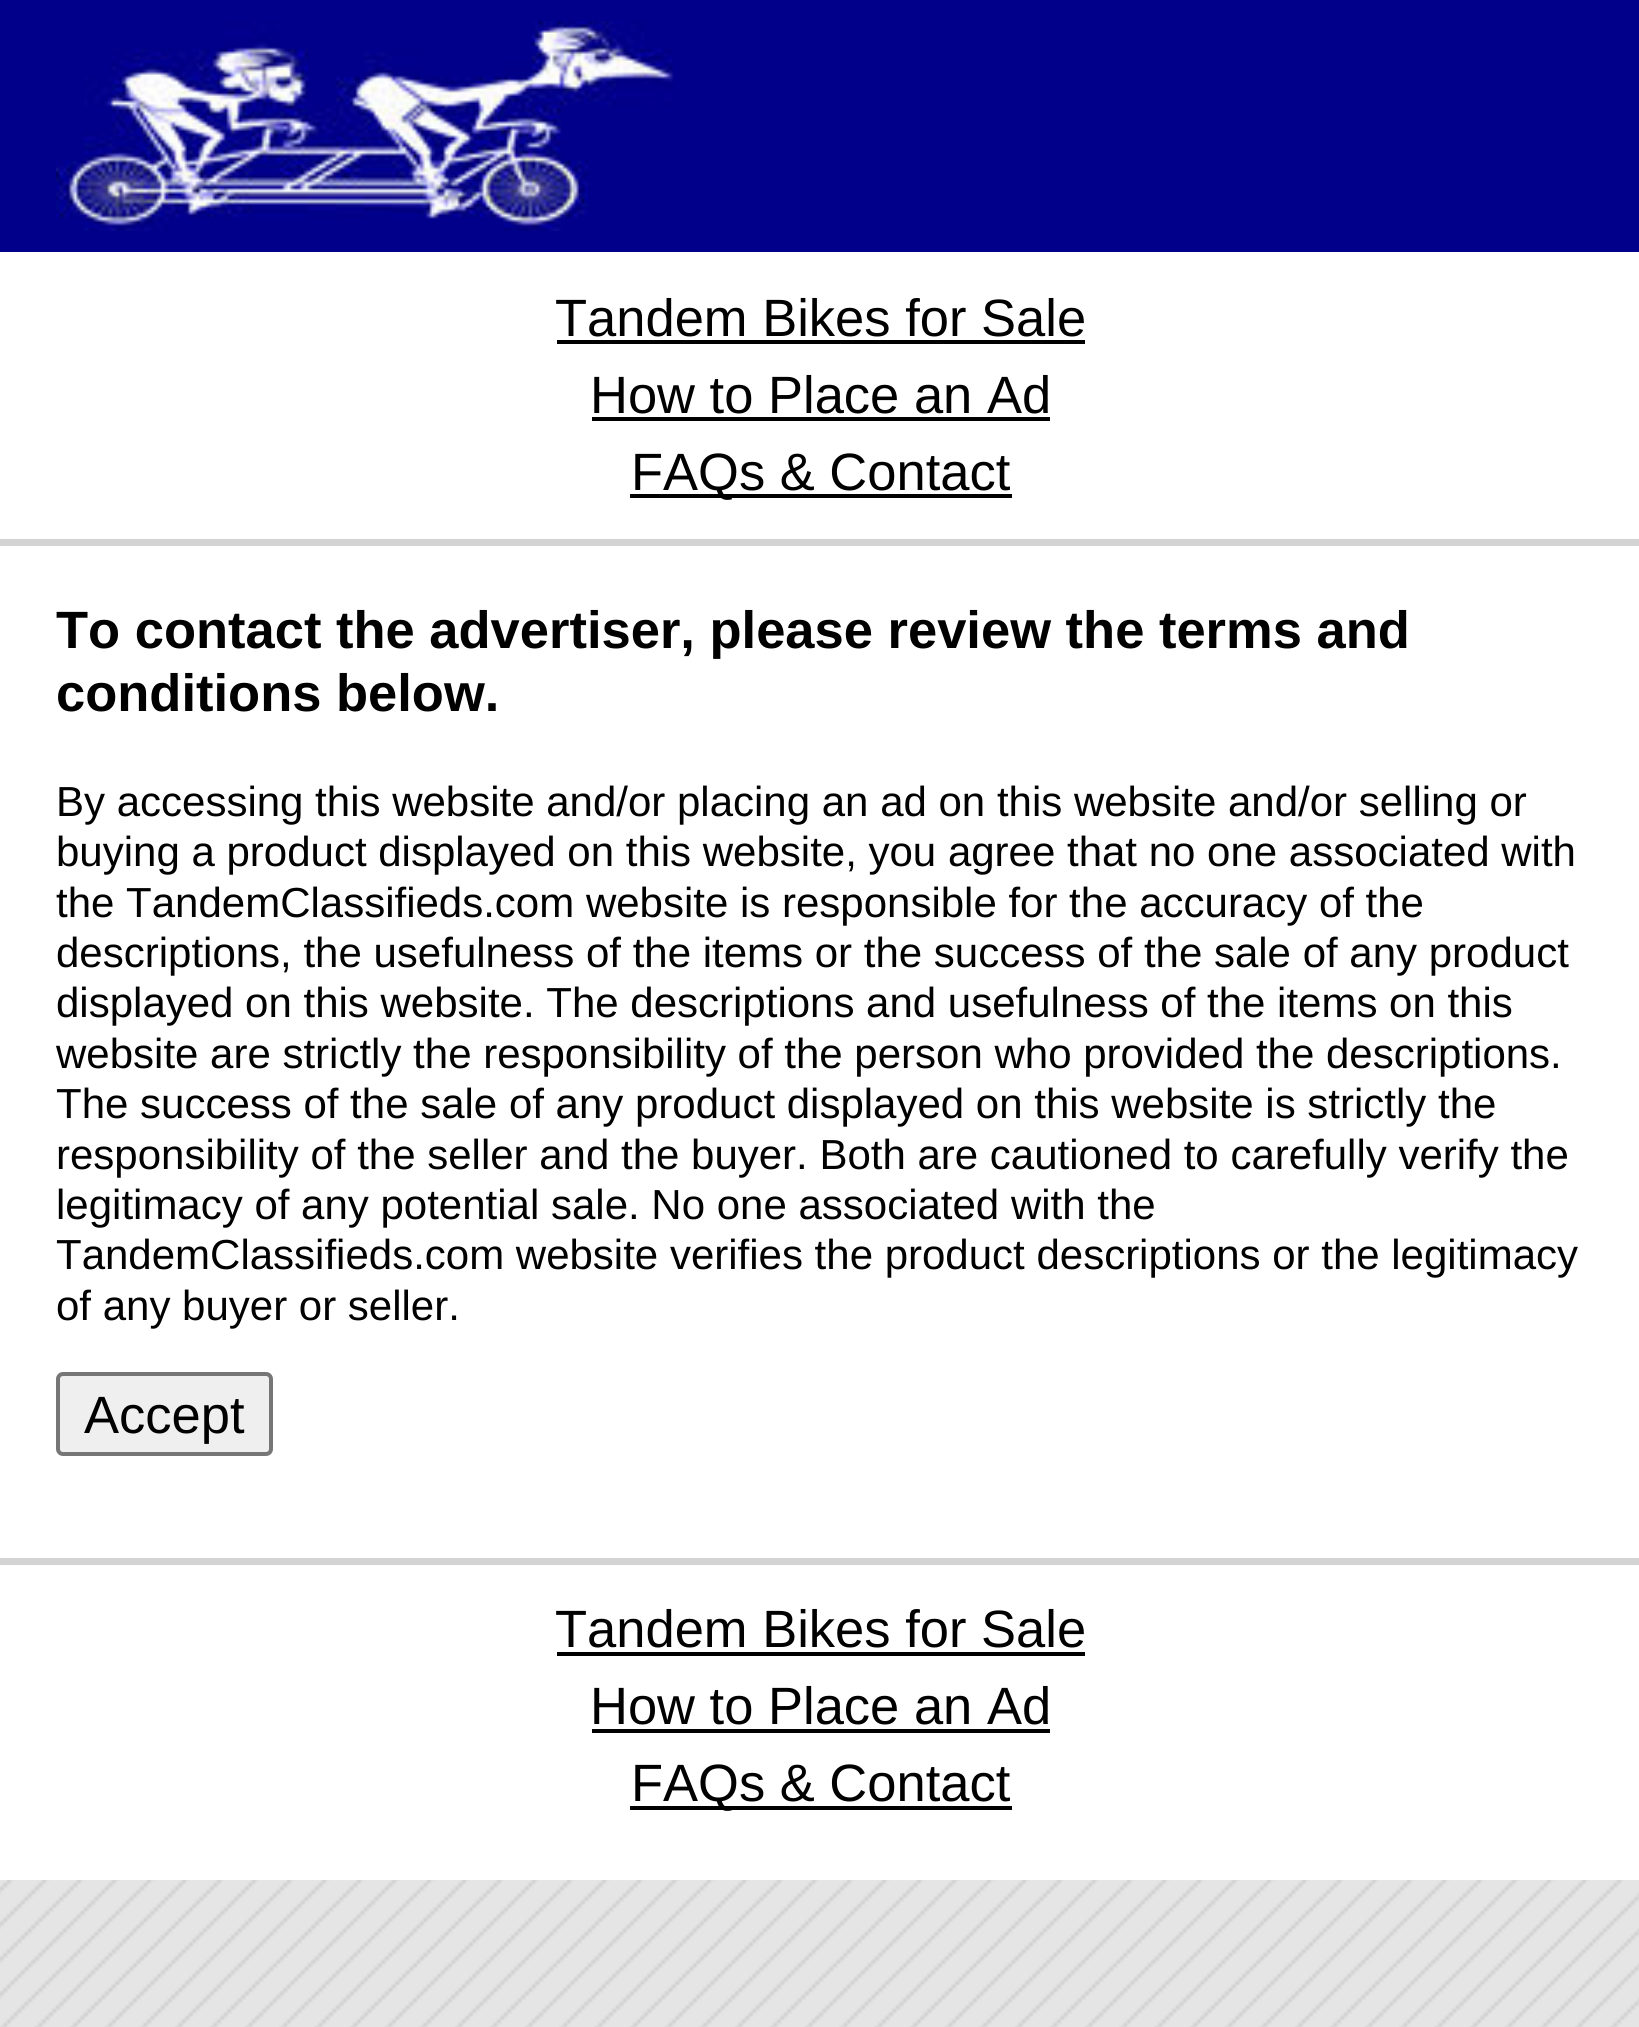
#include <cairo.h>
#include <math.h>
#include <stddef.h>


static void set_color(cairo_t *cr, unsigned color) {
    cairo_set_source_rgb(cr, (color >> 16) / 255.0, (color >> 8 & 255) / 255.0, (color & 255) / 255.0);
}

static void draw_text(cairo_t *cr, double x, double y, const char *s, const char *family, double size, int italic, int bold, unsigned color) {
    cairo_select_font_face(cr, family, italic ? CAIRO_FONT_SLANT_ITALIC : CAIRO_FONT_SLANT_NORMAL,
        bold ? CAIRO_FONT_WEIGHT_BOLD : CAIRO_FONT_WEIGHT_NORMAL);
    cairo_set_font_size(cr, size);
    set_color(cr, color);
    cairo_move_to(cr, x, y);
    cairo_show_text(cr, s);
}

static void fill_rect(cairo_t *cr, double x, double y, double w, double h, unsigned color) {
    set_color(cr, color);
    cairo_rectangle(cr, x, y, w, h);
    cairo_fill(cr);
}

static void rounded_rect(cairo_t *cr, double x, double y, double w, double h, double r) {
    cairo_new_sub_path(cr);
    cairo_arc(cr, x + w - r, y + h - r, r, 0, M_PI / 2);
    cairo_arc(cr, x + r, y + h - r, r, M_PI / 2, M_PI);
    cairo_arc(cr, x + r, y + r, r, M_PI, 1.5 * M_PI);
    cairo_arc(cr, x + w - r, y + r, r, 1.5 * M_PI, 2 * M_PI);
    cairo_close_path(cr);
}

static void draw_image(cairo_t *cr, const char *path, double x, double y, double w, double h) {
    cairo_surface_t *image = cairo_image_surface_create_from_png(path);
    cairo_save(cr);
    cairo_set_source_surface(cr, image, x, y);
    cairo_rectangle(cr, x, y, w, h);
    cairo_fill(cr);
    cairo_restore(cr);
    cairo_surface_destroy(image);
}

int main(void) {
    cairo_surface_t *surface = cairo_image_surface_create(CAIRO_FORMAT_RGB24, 1639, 2027);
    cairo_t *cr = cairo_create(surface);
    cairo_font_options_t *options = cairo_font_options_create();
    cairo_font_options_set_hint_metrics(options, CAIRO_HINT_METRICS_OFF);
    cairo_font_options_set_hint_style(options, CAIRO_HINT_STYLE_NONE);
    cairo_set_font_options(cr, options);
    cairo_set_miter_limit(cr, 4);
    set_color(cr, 0xFFFFFF);
    cairo_paint(cr);
    draw_image(cr, "assets/img1.png", 0, 1880, 1639, 147);
    fill_rect(cr, 0, 0, 1639, 252, 0x00008B);
    draw_image(cr, "assets/img2.png", 56, 21, 618, 210);
    draw_text(cr, 555, 336, "Tandem Bikes for Sale", "Liberation Sans", 52.5, 0, 0, 0x000000);
    fill_rect(cr, 557, 340, 528, 4, 0x000000);
    draw_text(cr, 590, 413, "How to Place an Ad", "Liberation Sans", 52.5, 0, 0, 0x000000);
    fill_rect(cr, 592, 417, 458, 4, 0x000000);
    fill_rect(cr, 630, 494, 382, 4, 0x000000);
    draw_text(cr, 631, 490, "FAQs & Contact", "Liberation Sans", 52.5, 0, 0, 0x000000);
    fill_rect(cr, 0, 539, 1639, 7, 0xD3D3D3);
    draw_text(cr, 56, 648, "To contact the advertiser, please review the terms and", "Liberation Sans", 52.5, 0, 1, 0x000000);
    draw_text(cr, 56, 711, "conditions below.", "Liberation Sans", 52.5, 0, 1, 0x000000);
    draw_text(cr, 56, 816, "By accessing this website and/or placing an ad on this website and/or selling or", "Liberation Sans", 42, 0, 0, 0x000000);
    draw_text(cr, 56, 866, "buying a product displayed on this website, you agree that no one associated with", "Liberation Sans", 42, 0, 0, 0x000000);
    draw_text(cr, 56, 917, "the TandemClassifieds.com website is responsible for the accuracy of the", "Liberation Sans", 42, 0, 0, 0x000000);
    draw_text(cr, 56, 967, "descriptions, the usefulness of the items or the success of the sale of any product", "Liberation Sans", 42, 0, 0, 0x000000);
    draw_text(cr, 56, 1017, "displayed on this website. The descriptions and usefulness of the items on this", "Liberation Sans", 42, 0, 0, 0x000000);
    draw_text(cr, 56, 1068, "website are strictly the responsibility of the person who provided the descriptions.", "Liberation Sans", 42, 0, 0, 0x000000);
    draw_text(cr, 56, 1118, "The success of the sale of any product displayed on this website is strictly the", "Liberation Sans", 42, 0, 0, 0x000000);
    draw_text(cr, 56, 1169, "responsibility of the seller and the buyer. Both are cautioned to carefully verify the", "Liberation Sans", 42, 0, 0, 0x000000);
    draw_text(cr, 56, 1219, "legitimacy of any potential sale. No one associated with the", "Liberation Sans", 42, 0, 0, 0x000000);
    draw_text(cr, 56, 1269, "TandemClassifieds.com website verifies the product descriptions or the legitimacy", "Liberation Sans", 42, 0, 0, 0x000000);
    draw_text(cr, 56, 1320, "of any buyer or seller.", "Liberation Sans", 42, 0, 0, 0x000000);
    set_color(cr, 0xEFEFEF);
    rounded_rect(cr, 58, 1374, 213, 80, 5);
    cairo_fill_preserve(cr);
    set_color(cr, 0x767676);
    cairo_set_line_width(cr, 4);
    cairo_stroke(cr);
    draw_text(cr, 84, 1433, "Accept", "Liberation Sans", 52.5, 0, 0, 0x000000);
    fill_rect(cr, 0, 1558, 1639, 7, 0xD3D3D3);
    draw_text(cr, 555, 1647, "Tandem Bikes for Sale", "Liberation Sans", 52.5, 0, 0, 0x000000);
    fill_rect(cr, 557, 1652, 528, 4, 0x000000);
    draw_text(cr, 590, 1724, "How to Place an Ad", "Liberation Sans", 52.5, 0, 0, 0x000000);
    fill_rect(cr, 592, 1729, 458, 4, 0x000000);
    fill_rect(cr, 630, 1806, 382, 4, 0x000000);
    draw_text(cr, 631, 1801, "FAQs & Contact", "Liberation Sans", 52.5, 0, 0, 0x000000);
    cairo_surface_write_to_png(surface, "output.png");
    cairo_font_options_destroy(options);
    cairo_destroy(cr);
    cairo_surface_destroy(surface);
    return 0;
}
